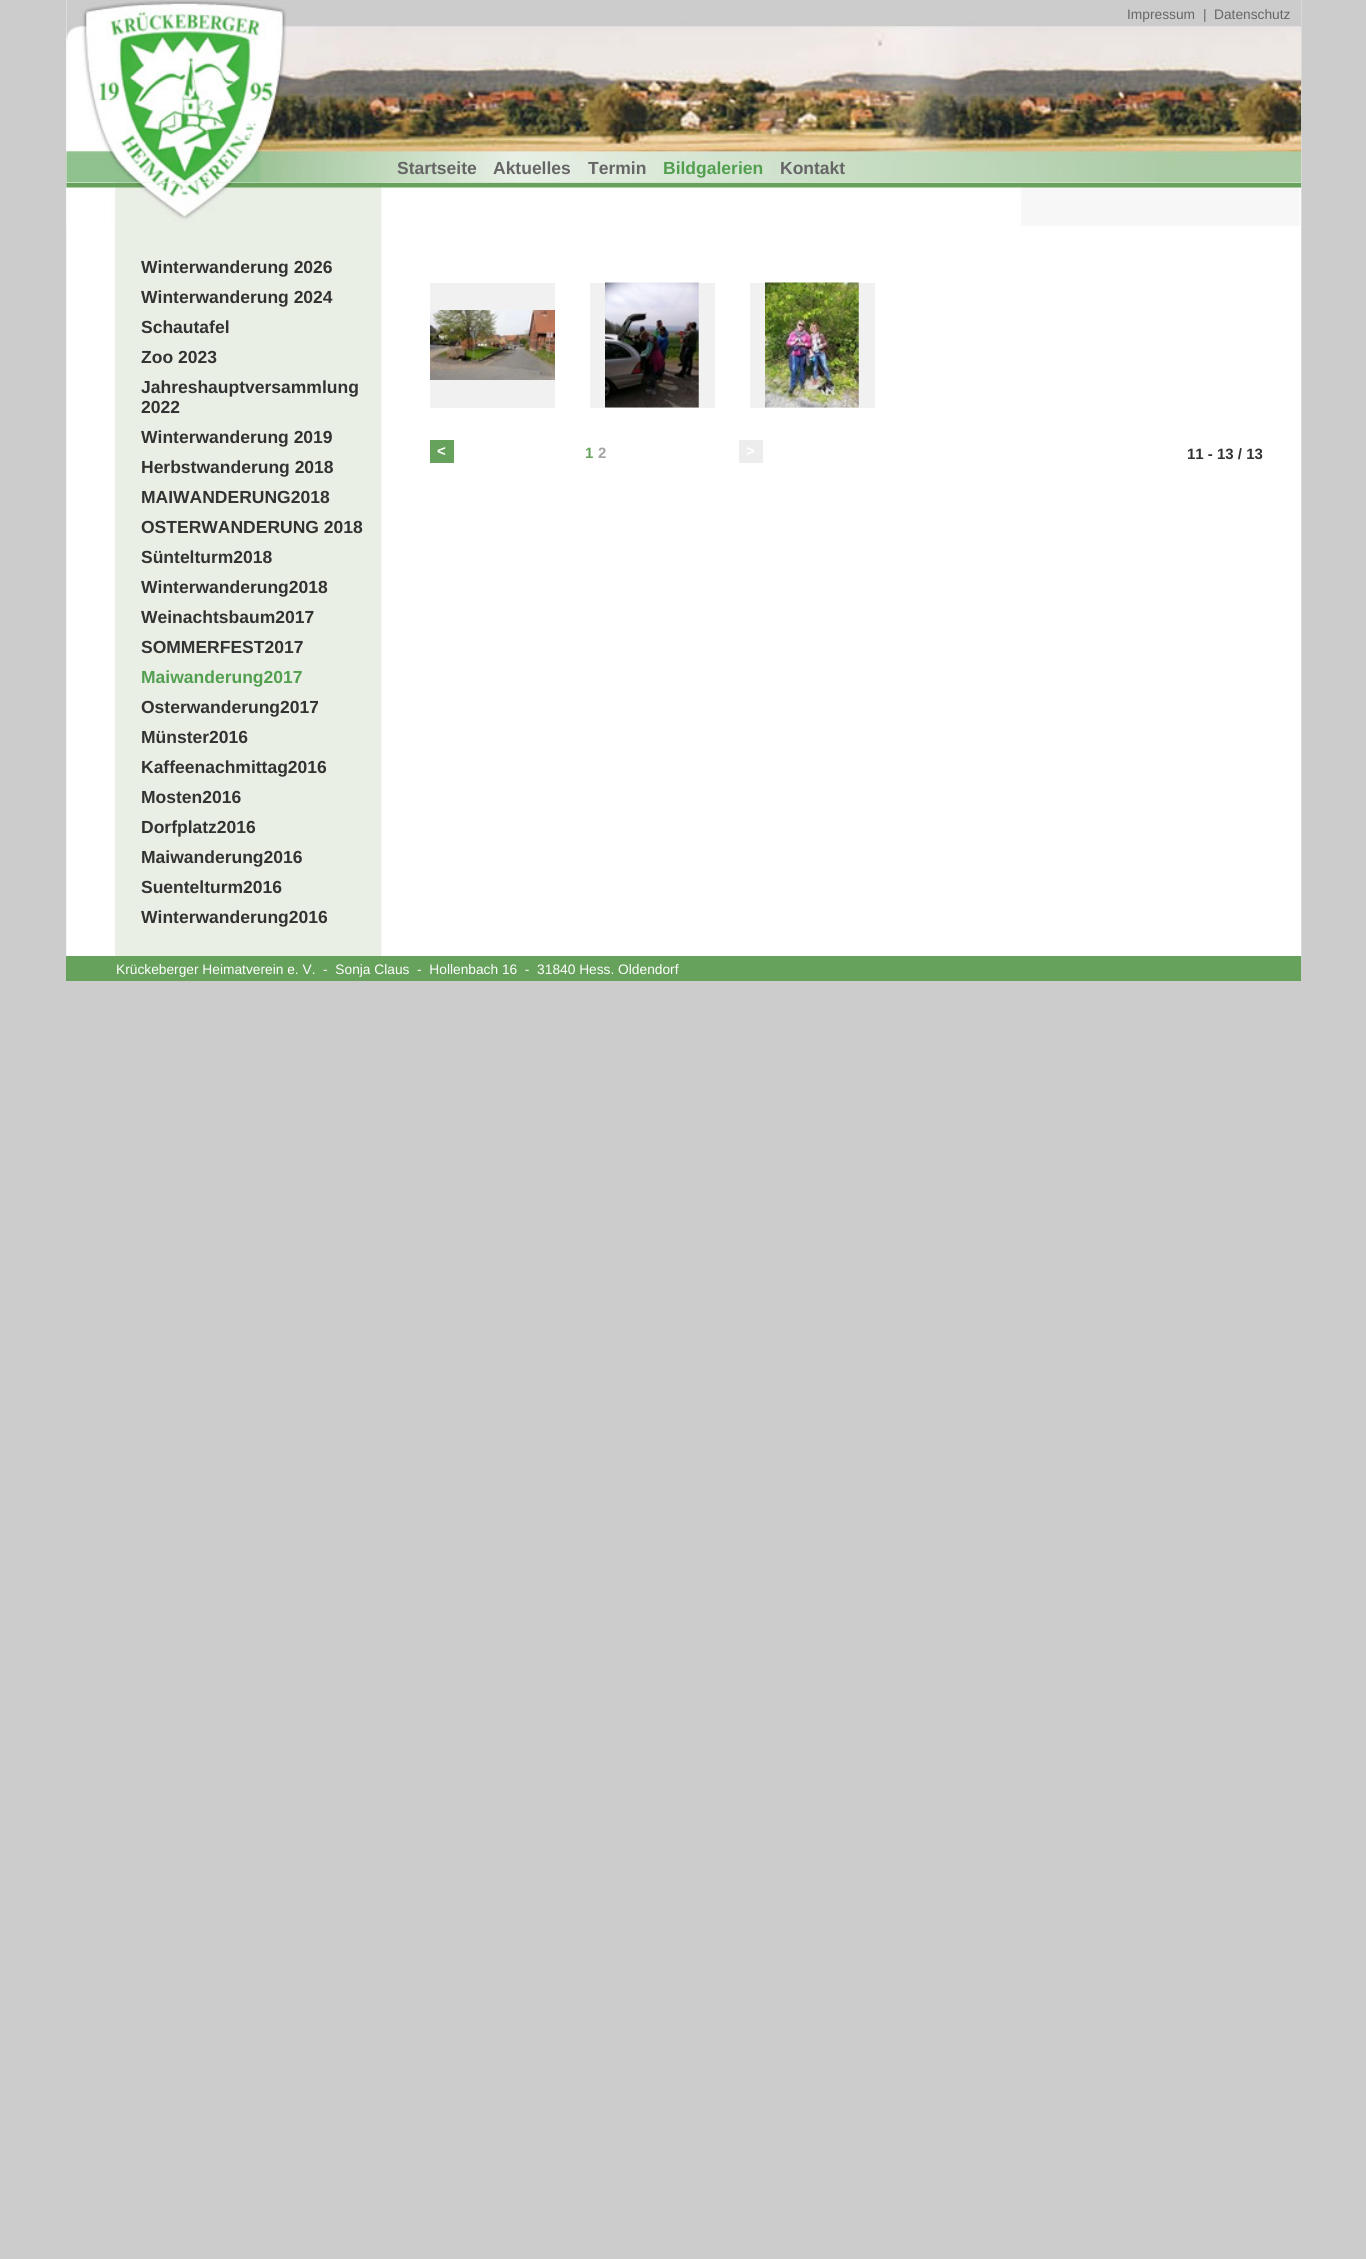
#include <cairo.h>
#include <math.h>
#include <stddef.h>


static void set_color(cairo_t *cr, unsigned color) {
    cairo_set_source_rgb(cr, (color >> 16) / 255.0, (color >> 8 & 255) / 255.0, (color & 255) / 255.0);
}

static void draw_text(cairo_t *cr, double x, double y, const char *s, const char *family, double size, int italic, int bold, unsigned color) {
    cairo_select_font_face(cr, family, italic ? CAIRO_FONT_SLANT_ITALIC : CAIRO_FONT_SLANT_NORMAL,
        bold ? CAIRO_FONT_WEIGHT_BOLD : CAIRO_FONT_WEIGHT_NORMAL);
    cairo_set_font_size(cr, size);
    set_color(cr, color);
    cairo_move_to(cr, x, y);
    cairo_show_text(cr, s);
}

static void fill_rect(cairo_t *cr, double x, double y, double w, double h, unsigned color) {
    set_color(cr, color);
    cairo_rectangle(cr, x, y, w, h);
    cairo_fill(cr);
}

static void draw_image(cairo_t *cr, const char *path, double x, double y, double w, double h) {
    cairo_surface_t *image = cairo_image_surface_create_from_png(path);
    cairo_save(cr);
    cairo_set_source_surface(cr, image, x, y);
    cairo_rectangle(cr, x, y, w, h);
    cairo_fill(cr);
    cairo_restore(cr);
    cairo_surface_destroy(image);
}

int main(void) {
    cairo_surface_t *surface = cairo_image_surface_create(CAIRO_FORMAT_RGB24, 1366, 2259);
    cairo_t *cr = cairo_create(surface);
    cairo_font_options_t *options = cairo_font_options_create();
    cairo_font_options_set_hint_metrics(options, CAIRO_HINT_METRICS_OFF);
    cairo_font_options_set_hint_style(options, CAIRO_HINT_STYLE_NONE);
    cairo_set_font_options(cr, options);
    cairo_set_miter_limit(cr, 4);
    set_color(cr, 0xCCCCCC);
    cairo_paint(cr);
    draw_image(cr, "assets/img1.png", 66, 0, 1236, 957);
    draw_image(cr, "assets/img2.png", 66, 0, 1236, 183);
    draw_text(cr, 1127, 19, "Impressum", "Liberation Sans", 13.75, 0, 0, 0x666666);
    draw_text(cr, 1203, 19, "|", "Liberation Sans", 13.75, 0, 0, 0x666666);
    draw_text(cr, 1214, 19, "Datenschutz", "Liberation Sans", 13.75, 0, 0, 0x666666);
    draw_text(cr, 397, 174, "Startseite", "Liberation Sans", 17.5, 0, 1, 0x666666);
    draw_text(cr, 493, 174, "Aktuelles", "Liberation Sans", 17.5, 0, 1, 0x666666);
    draw_text(cr, 588, 174, "Termin", "Liberation Sans", 17.5, 0, 1, 0x666666);
    draw_text(cr, 663, 174, "Bildgalerien", "Liberation Sans", 17.5, 0, 1, 0x529F50);
    draw_text(cr, 780, 174, "Kontakt", "Liberation Sans", 17.5, 0, 1, 0x666666);
    draw_image(cr, "assets/img3.png", 66, 182, 1236, 44);
    draw_text(cr, 141, 273, "Winterwanderung 2026", "Liberation Sans", 17.5, 0, 1, 0x333333);
    draw_text(cr, 141, 303, "Winterwanderung 2024", "Liberation Sans", 17.5, 0, 1, 0x333333);
    draw_text(cr, 141, 333, "Schautafel", "Liberation Sans", 17.5, 0, 1, 0x333333);
    draw_text(cr, 141, 363, "Zoo 2023", "Liberation Sans", 17.5, 0, 1, 0x333333);
    draw_text(cr, 141, 393, "Jahreshauptversammlung", "Liberation Sans", 17.5, 0, 1, 0x333333);
    draw_text(cr, 141, 413, "2022", "Liberation Sans", 17.5, 0, 1, 0x333333);
    draw_text(cr, 141, 443, "Winterwanderung 2019", "Liberation Sans", 17.5, 0, 1, 0x333333);
    draw_text(cr, 141, 473, "Herbstwanderung 2018", "Liberation Sans", 17.5, 0, 1, 0x333333);
    draw_text(cr, 141, 503, "MAIWANDERUNG2018", "Liberation Sans", 17.5, 0, 1, 0x333333);
    draw_text(cr, 141, 533, "OSTERWANDERUNG 2018", "Liberation Sans", 17.5, 0, 1, 0x333333);
    draw_text(cr, 141, 563, "Süntelturm2018", "Liberation Sans", 17.5, 0, 1, 0x333333);
    draw_text(cr, 141, 593, "Winterwanderung2018", "Liberation Sans", 17.5, 0, 1, 0x333333);
    draw_text(cr, 141, 623, "Weinachtsbaum2017", "Liberation Sans", 17.5, 0, 1, 0x333333);
    draw_text(cr, 141, 653, "SOMMERFEST2017", "Liberation Sans", 17.5, 0, 1, 0x333333);
    draw_text(cr, 141, 683, "Maiwanderung2017", "Liberation Sans", 17.5, 0, 1, 0x529F50);
    draw_text(cr, 141, 713, "Osterwanderung2017", "Liberation Sans", 17.5, 0, 1, 0x333333);
    draw_text(cr, 141, 743, "Münster2016", "Liberation Sans", 17.5, 0, 1, 0x333333);
    draw_text(cr, 141, 773, "Kaffeenachmittag2016", "Liberation Sans", 17.5, 0, 1, 0x333333);
    draw_text(cr, 141, 803, "Mosten2016", "Liberation Sans", 17.5, 0, 1, 0x333333);
    draw_text(cr, 141, 833, "Dorfplatz2016", "Liberation Sans", 17.5, 0, 1, 0x333333);
    draw_text(cr, 141, 863, "Maiwanderung2016", "Liberation Sans", 17.5, 0, 1, 0x333333);
    draw_text(cr, 141, 893, "Suentelturm2016", "Liberation Sans", 17.5, 0, 1, 0x333333);
    draw_text(cr, 141, 923, "Winterwanderung2016", "Liberation Sans", 17.5, 0, 1, 0x333333);
    fill_rect(cr, 430, 283, 125, 125, 0xF1F1F1);
    draw_image(cr, "assets/img4.png", 430, 310, 125, 70);
    fill_rect(cr, 590, 283, 125, 125, 0xF1F1F1);
    draw_image(cr, "assets/img5.png", 605, 282, 94, 126);
    fill_rect(cr, 750, 283, 125, 125, 0xF1F1F1);
    draw_image(cr, "assets/img6.png", 765, 282, 94, 126);
    fill_rect(cr, 430, 440, 24, 23, 0x66A25C);
    draw_text(cr, 437, 456, "<", "Liberation Sans", 15, 0, 1, 0xFFFFFF);
    draw_text(cr, 585, 458, "1", "Liberation Sans", 15, 0, 1, 0x67A25D);
    draw_text(cr, 598, 458, "2", "Liberation Sans", 15, 0, 1, 0xA3A3A3);
    fill_rect(cr, 739, 440, 24, 23, 0xEDEDED);
    draw_text(cr, 746, 456, ">", "Liberation Sans", 15, 0, 1, 0xFFFFFF);
    draw_text(cr, 1187, 459, "11 - 13 / 13", "Liberation Sans", 15, 0, 1, 0x333333);
    fill_rect(cr, 66, 956, 1235, 25, 0x67A25D);
    draw_text(cr, 116, 974, "Krückeberger Heimatverein e. V.  -  Sonja Claus  -  Hollenbach 16  -  31840 Hess. Oldendorf", "Liberation Sans", 13.75, 0, 0, 0xFFFFFF);
    cairo_surface_write_to_png(surface, "output.png");
    cairo_font_options_destroy(options);
    cairo_destroy(cr);
    cairo_surface_destroy(surface);
    return 0;
}
